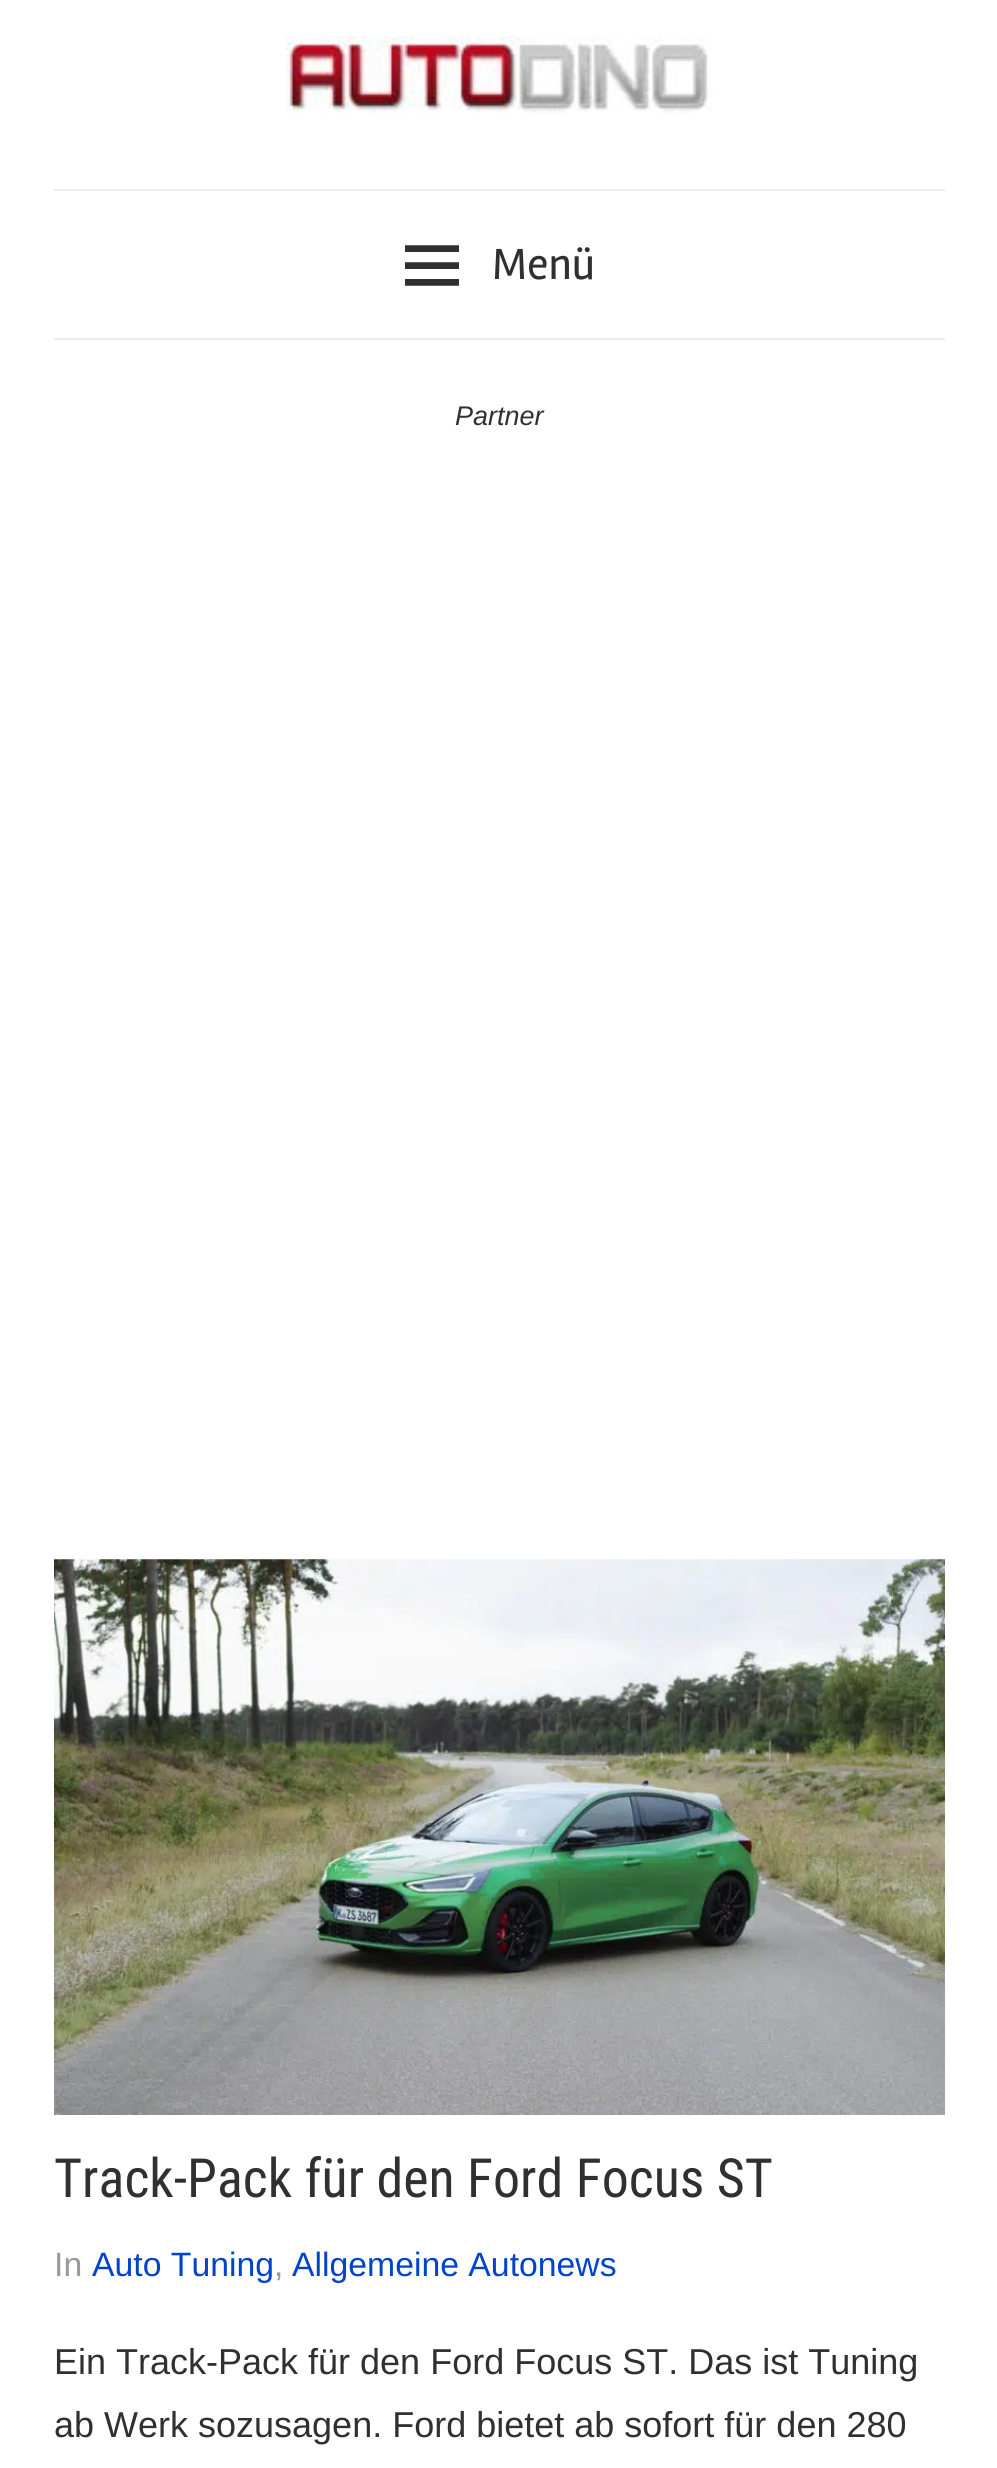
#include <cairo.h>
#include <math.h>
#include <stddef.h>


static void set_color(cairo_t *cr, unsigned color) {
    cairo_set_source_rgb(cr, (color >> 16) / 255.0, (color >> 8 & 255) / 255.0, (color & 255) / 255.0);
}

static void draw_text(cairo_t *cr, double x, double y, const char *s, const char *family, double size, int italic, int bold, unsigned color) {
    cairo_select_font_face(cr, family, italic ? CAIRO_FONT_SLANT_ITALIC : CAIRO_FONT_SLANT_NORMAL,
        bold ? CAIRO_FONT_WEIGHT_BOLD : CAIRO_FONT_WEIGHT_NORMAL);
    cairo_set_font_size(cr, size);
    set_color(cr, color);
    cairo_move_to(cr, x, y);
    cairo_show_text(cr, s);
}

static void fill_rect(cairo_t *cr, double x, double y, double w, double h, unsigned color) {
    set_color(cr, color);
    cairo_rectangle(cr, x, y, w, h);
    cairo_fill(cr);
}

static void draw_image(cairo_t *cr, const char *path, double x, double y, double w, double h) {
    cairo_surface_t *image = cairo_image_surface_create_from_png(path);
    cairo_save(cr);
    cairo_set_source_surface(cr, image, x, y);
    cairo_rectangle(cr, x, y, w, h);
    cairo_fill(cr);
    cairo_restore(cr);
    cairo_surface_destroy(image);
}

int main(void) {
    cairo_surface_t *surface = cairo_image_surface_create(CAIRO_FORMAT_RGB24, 997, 2468);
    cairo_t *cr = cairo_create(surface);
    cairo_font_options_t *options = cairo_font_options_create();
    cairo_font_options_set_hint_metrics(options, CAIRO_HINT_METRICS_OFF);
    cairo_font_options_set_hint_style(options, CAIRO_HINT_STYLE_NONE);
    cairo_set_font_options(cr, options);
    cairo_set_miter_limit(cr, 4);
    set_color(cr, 0xFFFFFF);
    cairo_paint(cr);
    fill_rect(cr, 54, 338, 891, 2, 0xECECEC);
    draw_image(cr, "assets/img1.png", 285, 36, 428, 78);
    fill_rect(cr, 54, 189, 891, 2, 0xECECEC);
    draw_image(cr, "assets/img2.png", 405, 245, 54, 41);
    draw_text(cr, 492, 279, "Menü", "Rambla", 45, 0, 0, 0x303030);
    draw_text(cr, 455, 425, "Partner", "Liberation Sans", 27, 1, 0, 0x303030);
    draw_image(cr, "assets/img3.png", 54, 1559, 891, 556);
    draw_text(cr, 54, 2197, "Track-Pack für den Ford Focus ST", "Roboto Condensed", 54, 0, 0, 0x303030);
    draw_text(cr, 54, 2276, "In", "Liberation Sans", 33.75, 0, 0, 0x999999);
    draw_text(cr, 92, 2276, "Auto Tuning", "Liberation Sans", 33.75, 0, 0, 0x0044CC);
    draw_text(cr, 274, 2276, ",", "Liberation Sans", 33.75, 0, 0, 0x999999);
    draw_text(cr, 292, 2276, "Allgemeine Autonews", "Liberation Sans", 33.75, 0, 0, 0x0044CC);
    draw_text(cr, 54, 2374, "Ein Track-Pack für den Ford Focus ST. Das ist Tuning", "Liberation Sans", 36, 0, 0, 0x303030);
    draw_text(cr, 54, 2437, "ab Werk sozusagen. Ford bietet ab sofort für den 280", "Liberation Sans", 36, 0, 0, 0x303030);
    cairo_surface_write_to_png(surface, "output.png");
    cairo_font_options_destroy(options);
    cairo_destroy(cr);
    cairo_surface_destroy(surface);
    return 0;
}
